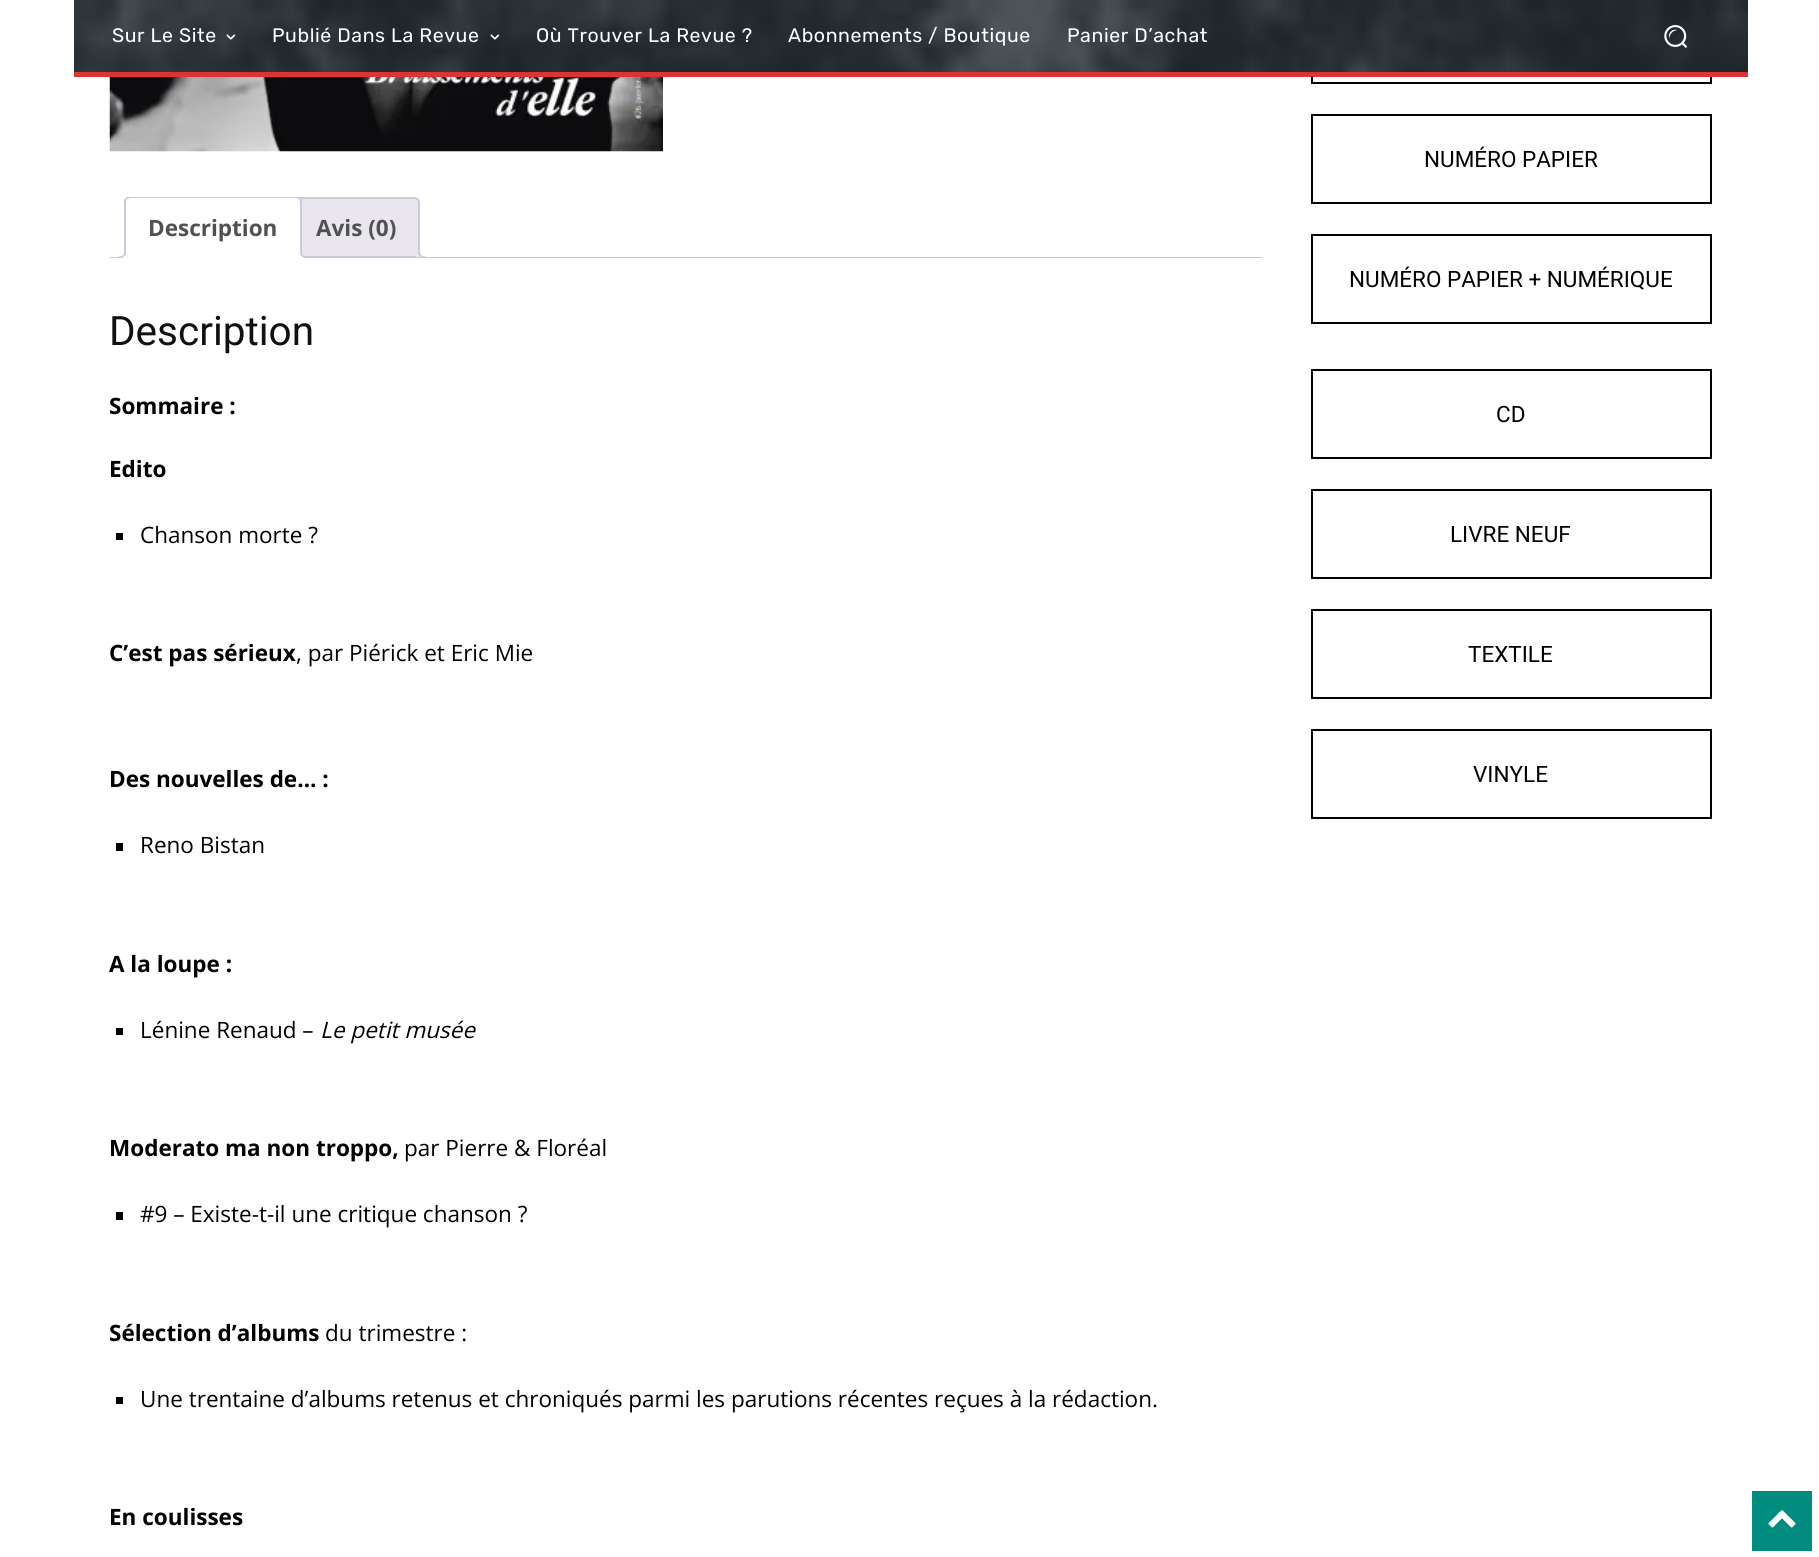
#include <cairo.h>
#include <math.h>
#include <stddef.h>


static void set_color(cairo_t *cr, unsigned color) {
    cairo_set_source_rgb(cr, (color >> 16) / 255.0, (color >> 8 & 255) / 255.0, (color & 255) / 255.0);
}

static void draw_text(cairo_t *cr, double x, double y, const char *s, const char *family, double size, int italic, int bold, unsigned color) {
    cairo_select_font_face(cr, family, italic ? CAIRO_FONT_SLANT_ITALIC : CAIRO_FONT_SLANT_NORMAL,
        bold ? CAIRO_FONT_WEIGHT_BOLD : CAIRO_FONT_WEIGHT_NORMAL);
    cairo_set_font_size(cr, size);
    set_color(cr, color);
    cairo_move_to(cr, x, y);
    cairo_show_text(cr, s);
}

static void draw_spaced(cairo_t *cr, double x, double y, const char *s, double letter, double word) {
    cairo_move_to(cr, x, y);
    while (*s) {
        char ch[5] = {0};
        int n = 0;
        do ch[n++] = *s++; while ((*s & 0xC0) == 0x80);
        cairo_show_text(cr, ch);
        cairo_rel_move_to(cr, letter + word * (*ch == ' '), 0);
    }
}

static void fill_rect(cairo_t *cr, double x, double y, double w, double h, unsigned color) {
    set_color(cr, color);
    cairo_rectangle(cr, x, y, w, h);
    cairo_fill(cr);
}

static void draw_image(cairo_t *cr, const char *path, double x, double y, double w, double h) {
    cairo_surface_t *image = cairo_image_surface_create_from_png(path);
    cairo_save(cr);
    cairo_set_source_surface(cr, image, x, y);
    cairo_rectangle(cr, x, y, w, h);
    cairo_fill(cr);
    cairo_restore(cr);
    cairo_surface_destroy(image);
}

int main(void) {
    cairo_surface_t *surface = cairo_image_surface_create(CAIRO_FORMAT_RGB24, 1819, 1557);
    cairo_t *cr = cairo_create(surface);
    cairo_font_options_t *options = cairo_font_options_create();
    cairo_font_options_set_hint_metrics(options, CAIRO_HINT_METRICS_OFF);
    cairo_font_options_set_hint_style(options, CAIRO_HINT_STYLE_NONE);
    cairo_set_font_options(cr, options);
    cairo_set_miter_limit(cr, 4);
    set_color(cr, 0xFFFFFF);
    cairo_paint(cr);
    cairo_rectangle(cr, 1312, -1, 399, 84);
    set_color(cr, 0x000000);
    cairo_stroke(cr);
    fill_rect(cr, 74, 0, 1674, 72, 0x232D35);
    draw_image(cr, "assets/img1.png", 74, 0, 1674, 72);
    cairo_select_font_face(cr, "Rubik", CAIRO_FONT_SLANT_NORMAL, CAIRO_FONT_WEIGHT_NORMAL);
    cairo_set_font_size(cr, 19.5);
    set_color(cr, 0xFFFFFF);
    draw_spaced(cr, 112, 42, "Sur Le Site", 0.6, 0);
    draw_image(cr, "assets/img2.png", 226, 34, 10, 6);
    draw_spaced(cr, 272, 42, "Publié Dans La Revue", 0.6, 0);
    draw_image(cr, "assets/img3.png", 490, 34, 10, 6);
    draw_spaced(cr, 536, 42, "Où Trouver La Revue ?", 0.6, 0);
    draw_spaced(cr, 788, 42, "Abonnements / Boutique", 0.6, 0);
    draw_spaced(cr, 1067, 42, "Panier D’achat", 0.6, 0);
    draw_image(cr, "assets/img4.png", 1664, 25, 24, 23);
    fill_rect(cr, 74, 72, 1674, 5, 0xDD3333);
    draw_image(cr, "assets/img5.png", 109, 77, 554, 75);
    set_color(cr, 0xE9E6ED);
    cairo_new_path(cr);
    cairo_move_to(cr, 299, 198);
    cairo_line_to(cr, 414, 198);
    cairo_curve_to(cr, 417, 198, 419, 200, 419, 203);
    cairo_line_to(cr, 419, 257);
    cairo_line_to(cr, 294, 257);
    cairo_line_to(cr, 294, 203);
    cairo_curve_to(cr, 294, 200, 296, 198, 299, 198);
    cairo_close_path(cr);
    cairo_fill_preserve(cr);
    set_color(cr, 0xCFC8D8);
    cairo_stroke(cr);
    cairo_save(cr);
    cairo_rectangle(cr, 110, 197, 1152, 61);
    cairo_clip(cr);
    set_color(cr, 0xE9E6ED);
    cairo_new_path(cr);
    cairo_move_to(cr, 416, 254);
    cairo_curve_to(cr, 416, 258.5, 418.5, 261, 423, 261);
    cairo_line_to(cr, 423, 258);
    cairo_curve_to(cr, 421, 257.5, 419.5, 256, 419, 254);
    cairo_close_path(cr);
    cairo_fill(cr);
    cairo_restore(cr);
    cairo_set_fill_rule(cr, CAIRO_FILL_RULE_EVEN_ODD);
    cairo_new_path(cr);
    cairo_move_to(cr, 418.5, 250.5);
    cairo_line_to(cr, 426, 250.5);
    cairo_line_to(cr, 426, 258);
    cairo_curve_to(cr, 422, 258, 418.5, 256.5, 418.5, 252);
    cairo_close_path(cr);
    cairo_move_to(cr, 420, 250.5);
    cairo_line_to(cr, 426, 250.5);
    cairo_line_to(cr, 426, 256.5);
    cairo_curve_to(cr, 423, 256.5, 420, 255.5, 420, 252);
    cairo_close_path(cr);
    cairo_fill(cr);
    fill_rect(cr, 110, 257, 1152, 1, 0xCFC8D8);
    set_color(cr, 0xFFFFFF);
    cairo_new_path(cr);
    cairo_move_to(cr, 131, 197);
    cairo_line_to(cr, 296, 197);
    cairo_curve_to(cr, 299.5, 197, 302, 199.5, 302, 203);
    cairo_line_to(cr, 302, 258);
    cairo_line_to(cr, 125, 258);
    cairo_line_to(cr, 125, 203);
    cairo_curve_to(cr, 125, 199.5, 127.5, 197, 131, 197);
    cairo_close_path(cr);
    cairo_fill(cr);
    cairo_save(cr);
    cairo_set_fill_rule(cr, CAIRO_FILL_RULE_WINDING);
    cairo_rectangle(cr, 110, 197, 1152, 61);
    cairo_clip(cr);
    set_color(cr, 0xCFC8D8);
    cairo_new_path(cr);
    cairo_move_to(cr, 130, 198);
    cairo_line_to(cr, 127, 199);
    cairo_line_to(cr, 126, 198);
    cairo_line_to(cr, 128, 196);
    cairo_line_to(cr, 298, 196);
    cairo_line_to(cr, 300, 198);
    cairo_line_to(cr, 299, 199);
    cairo_line_to(cr, 296, 198);
    cairo_close_path(cr);
    cairo_fill(cr);
    cairo_restore(cr);
    set_color(cr, 0xCFC8D8);
    cairo_set_fill_rule(cr, CAIRO_FILL_RULE_WINDING);
    cairo_new_path(cr);
    cairo_move_to(cr, 302, 200);
    cairo_line_to(cr, 302, 258);
    cairo_line_to(cr, 300, 256);
    cairo_line_to(cr, 300, 202);
    cairo_line_to(cr, 299, 199);
    cairo_line_to(cr, 300, 198);
    cairo_close_path(cr);
    cairo_fill(cr);
    set_color(cr, 0xFFFFFF);
    cairo_new_path(cr);
    cairo_move_to(cr, 302, 258);
    cairo_line_to(cr, 300, 256);
    cairo_line_to(cr, 126, 256);
    cairo_line_to(cr, 124, 258);
    cairo_close_path(cr);
    cairo_fill(cr);
    set_color(cr, 0xCFC8D8);
    cairo_new_path(cr);
    cairo_move_to(cr, 124, 258);
    cairo_line_to(cr, 124, 200);
    cairo_line_to(cr, 126, 198);
    cairo_line_to(cr, 127, 199);
    cairo_line_to(cr, 126, 202);
    cairo_line_to(cr, 126, 256);
    cairo_close_path(cr);
    cairo_fill(cr);
    draw_text(cr, 148, 236, "Description", "Open Sans", 22.5, 0, 1, 0x515151);
    cairo_save(cr);
    cairo_rectangle(cr, 110, 197, 1152, 61);
    cairo_clip(cr);
    set_color(cr, 0xFFFFFF);
    cairo_new_path(cr);
    cairo_move_to(cr, 122, 257.5);
    cairo_line_to(cr, 122, 261);
    cairo_curve_to(cr, 126.5, 261, 129, 258.5, 129, 254);
    cairo_line_to(cr, 125.5, 254);
    cairo_curve_to(cr, 125, 255.5, 123.5, 257, 122, 257.5);
    cairo_close_path(cr);
    cairo_fill(cr);
    cairo_restore(cr);
    set_color(cr, 0xCFC8D8);
    cairo_set_fill_rule(cr, CAIRO_FILL_RULE_EVEN_ODD);
    cairo_new_path(cr);
    cairo_move_to(cr, 118.5, 250.5);
    cairo_line_to(cr, 126, 250.5);
    cairo_curve_to(cr, 126, 256, 124, 258, 118.5, 258);
    cairo_close_path(cr);
    cairo_move_to(cr, 118.5, 250.5);
    cairo_line_to(cr, 124.5, 250.5);
    cairo_curve_to(cr, 124.5, 255, 123, 256.5, 118.5, 256.5);
    cairo_close_path(cr);
    cairo_fill(cr);
    cairo_save(cr);
    cairo_set_fill_rule(cr, CAIRO_FILL_RULE_WINDING);
    cairo_rectangle(cr, 110, 197, 1152, 61);
    cairo_clip(cr);
    set_color(cr, 0xFFFFFF);
    cairo_new_path(cr);
    cairo_move_to(cr, 297, 254);
    cairo_curve_to(cr, 297, 259.5, 300, 261, 305, 261);
    cairo_line_to(cr, 305, 258);
    cairo_curve_to(cr, 303, 257.5, 301, 256, 300.5, 254);
    cairo_close_path(cr);
    cairo_fill(cr);
    cairo_restore(cr);
    cairo_new_path(cr);
    cairo_move_to(cr, 300, 250.5);
    cairo_line_to(cr, 307.5, 250.5);
    cairo_line_to(cr, 307.5, 258);
    cairo_curve_to(cr, 303.5, 258, 300, 256.5, 300, 252);
    cairo_close_path(cr);
    cairo_move_to(cr, 301.5, 250.5);
    cairo_line_to(cr, 307.5, 250.5);
    cairo_line_to(cr, 307.5, 256.5);
    cairo_curve_to(cr, 304.5, 256.5, 301.5, 255.5, 301.5, 252);
    cairo_close_path(cr);
    cairo_fill(cr);
    draw_text(cr, 316, 236, "Avis (0)", "Open Sans", 22.5, 0, 1, 0x515151);
    draw_text(cr, 109, 345, "Description", "Roboto", 40.5, 0, 0, 0x111111);
    draw_text(cr, 109, 414, "Sommaire :", "Open Sans", 22.5, 0, 1, 0x000000);
    draw_text(cr, 109, 477, "Edito", "Open Sans", 22.5, 0, 1, 0x000000);
    fill_rect(cr, 116, 533, 7, 7, 0x000000);
    draw_text(cr, 140, 543, "Chanson morte ?", "Open Sans", 22.5, 0, 0, 0x000000);
    draw_text(cr, 109, 661, "C’est pas sérieux", "Open Sans", 22.5, 0, 1, 0x000000);
    draw_text(cr, 296, 661, ", par Piérick et Eric Mie", "Open Sans", 22.5, 0, 0, 0x000000);
    draw_text(cr, 109, 787, "Des nouvelles de… :", "Open Sans", 22.5, 0, 1, 0x000000);
    fill_rect(cr, 116, 843, 7, 8, 0x000000);
    draw_text(cr, 140, 853, "Reno Bistan", "Open Sans", 22.5, 0, 0, 0x000000);
    draw_text(cr, 109, 972, "A la loupe :", "Open Sans", 22.5, 0, 1, 0x000000);
    fill_rect(cr, 116, 1028, 7, 7, 0x000000);
    draw_text(cr, 140, 1038, "Lénine Renaud –", "Open Sans", 22.5, 0, 0, 0x000000);
    draw_text(cr, 320, 1038, "Le petit musée", "Open Sans", 22.5, 1, 0, 0x000000);
    draw_text(cr, 109, 1156, "Moderato ma non troppo,", "Open Sans", 22.5, 0, 1, 0x000000);
    draw_text(cr, 404, 1156, "par Pierre & Floréal", "Open Sans", 22.5, 0, 0, 0x000000);
    fill_rect(cr, 116, 1212, 7, 8, 0x000000);
    draw_text(cr, 140, 1222, "#9 – Existe-t-il une critique chanson ?", "Open Sans", 22.5, 0, 0, 0x000000);
    draw_text(cr, 109, 1341, "Sélection d’albums", "Open Sans", 22.5, 0, 1, 0x000000);
    draw_text(cr, 325, 1341, "du trimestre :", "Open Sans", 22.5, 0, 0, 0x000000);
    fill_rect(cr, 116, 1397, 7, 7, 0x000000);
    draw_text(cr, 140, 1407, "Une trentaine d’albums retenus et chroniqués parmi les parutions récentes reçues à la rédaction.", "Open Sans", 22.5, 0, 0, 0x000000);
    draw_text(cr, 109, 1525, "En coulisses", "Open Sans", 22.5, 0, 1, 0x000000);
    cairo_rectangle(cr, 1312, 115, 399, 88);
    cairo_stroke(cr);
    draw_text(cr, 1424, 167, "NUMÉRO PAPIER", "Roboto", 22.5, 0, 0, 0x000000);
    cairo_rectangle(cr, 1312, 235, 399, 88);
    cairo_stroke(cr);
    draw_text(cr, 1349, 287, "NUMÉRO PAPIER + NUMÉRIQUE", "Roboto", 22.5, 0, 0, 0x000000);
    cairo_rectangle(cr, 1312, 370, 399, 88);
    cairo_stroke(cr);
    draw_text(cr, 1496, 422, "CD", "Roboto", 22.5, 0, 0, 0x000000);
    cairo_rectangle(cr, 1312, 490, 399, 88);
    cairo_stroke(cr);
    draw_text(cr, 1450, 542, "LIVRE NEUF", "Roboto", 22.5, 0, 0, 0x000000);
    cairo_rectangle(cr, 1312, 610, 399, 88);
    cairo_stroke(cr);
    draw_text(cr, 1468, 662, "TEXTILE", "Roboto", 22.5, 0, 0, 0x000000);
    cairo_rectangle(cr, 1312, 730, 399, 88);
    cairo_stroke(cr);
    draw_text(cr, 1473, 782, "VINYLE", "Roboto", 22.5, 0, 0, 0x000000);
    fill_rect(cr, 1752, 1491, 60, 60, 0x008D7F);
    draw_image(cr, "assets/img6.png", 1768, 1510, 28, 18);
    cairo_surface_write_to_png(surface, "output.png");
    cairo_font_options_destroy(options);
    cairo_destroy(cr);
    cairo_surface_destroy(surface);
    return 0;
}
